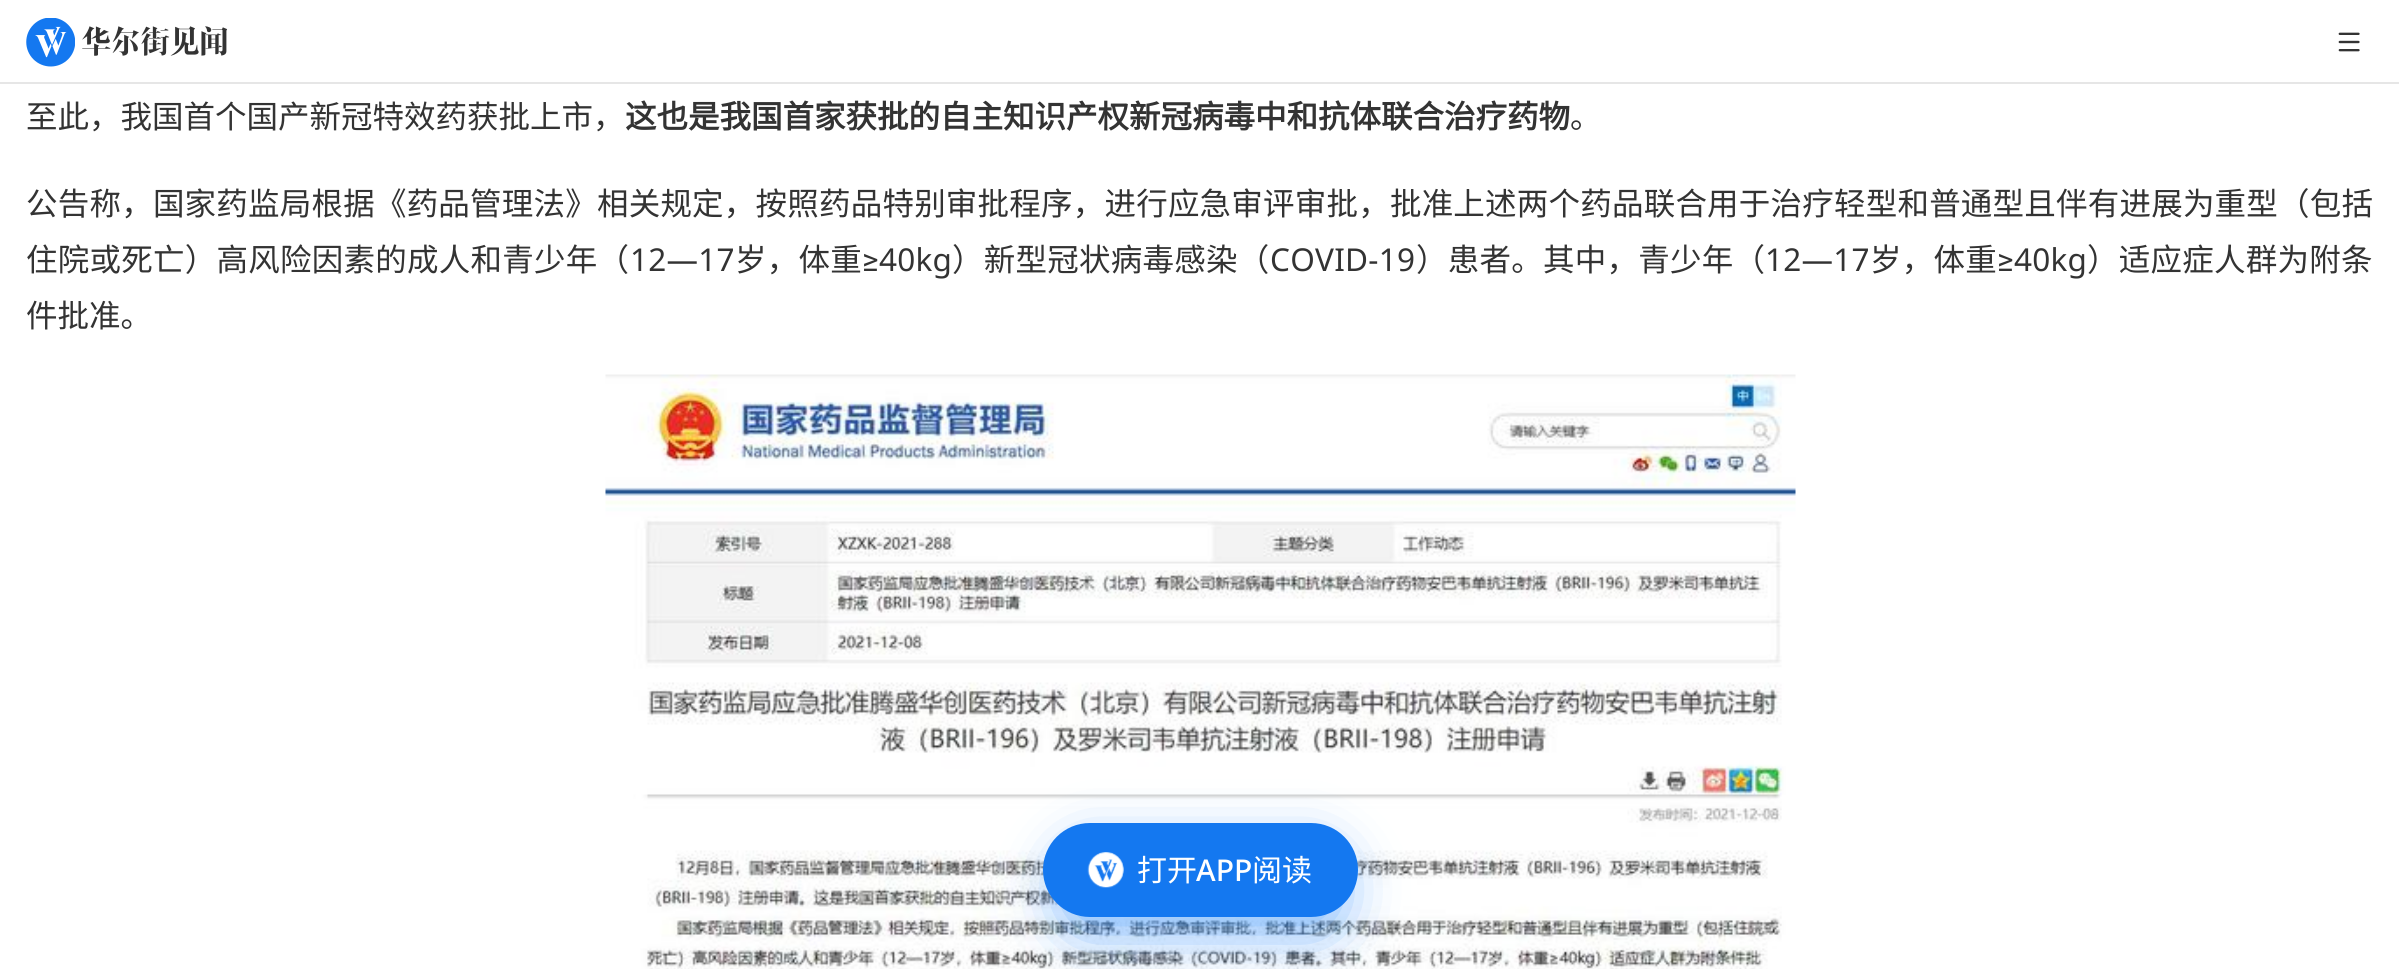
#include <cairo.h>
#include <math.h>
#include <stddef.h>


static void set_color(cairo_t *cr, unsigned color) {
    cairo_set_source_rgb(cr, (color >> 16) / 255.0, (color >> 8 & 255) / 255.0, (color & 255) / 255.0);
}

static void draw_text(cairo_t *cr, double x, double y, const char *s, const char *family, double size, int italic, int bold, unsigned color) {
    cairo_select_font_face(cr, family, italic ? CAIRO_FONT_SLANT_ITALIC : CAIRO_FONT_SLANT_NORMAL,
        bold ? CAIRO_FONT_WEIGHT_BOLD : CAIRO_FONT_WEIGHT_NORMAL);
    cairo_set_font_size(cr, size);
    set_color(cr, color);
    cairo_move_to(cr, x, y);
    cairo_show_text(cr, s);
}

static void draw_spaced(cairo_t *cr, double x, double y, const char *s, double letter, double word) {
    cairo_move_to(cr, x, y);
    while (*s) {
        char ch[5] = {0};
        int n = 0;
        do ch[n++] = *s++; while ((*s & 0xC0) == 0x80);
        cairo_show_text(cr, ch);
        cairo_rel_move_to(cr, letter + word * (*ch == ' '), 0);
    }
}

static void fill_rect(cairo_t *cr, double x, double y, double w, double h, unsigned color) {
    set_color(cr, color);
    cairo_rectangle(cr, x, y, w, h);
    cairo_fill(cr);
}

static void rounded_rect(cairo_t *cr, double x, double y, double w, double h, double r) {
    cairo_new_sub_path(cr);
    cairo_arc(cr, x + w - r, y + h - r, r, 0, M_PI / 2);
    cairo_arc(cr, x + r, y + h - r, r, M_PI / 2, M_PI);
    cairo_arc(cr, x + r, y + r, r, M_PI, 1.5 * M_PI);
    cairo_arc(cr, x + w - r, y + r, r, 1.5 * M_PI, 2 * M_PI);
    cairo_close_path(cr);
}

static void draw_shadow(cairo_t *cr, double x, double y, double w, double h, double r, double blur, double alpha) {
    cairo_push_group_with_content(cr, CAIRO_CONTENT_ALPHA);
    cairo_set_operator(cr, CAIRO_OPERATOR_SOURCE);
    for (int i = 15; i >= -15 && fmin(w, h) + blur * i / 3 > 0; i -= 2) {
        double e = blur * i / 6;
        cairo_set_source_rgba(cr, 0, 0, 0, alpha * erfc((i - 1) / 8.5) / 2);
        rounded_rect(cr, x - e, y - e, w + 2 * e, h + 2 * e, fmax(0, fmin(r + e + blur * .6, fmin(w, h) / 2 + e)));
        cairo_fill(cr);
    }
    cairo_pattern_t *soft = cairo_pop_group(cr);
    cairo_mask(cr, soft);
    cairo_pattern_destroy(soft);
}

static void draw_image(cairo_t *cr, const char *path, double x, double y, double w, double h) {
    cairo_surface_t *image = cairo_image_surface_create_from_png(path);
    cairo_save(cr);
    cairo_set_source_surface(cr, image, x, y);
    cairo_rectangle(cr, x, y, w, h);
    cairo_fill(cr);
    cairo_restore(cr);
    cairo_surface_destroy(image);
}

int main(void) {
    cairo_surface_t *surface = cairo_image_surface_create(CAIRO_FORMAT_RGB24, 2399, 969);
    cairo_t *cr = cairo_create(surface);
    cairo_font_options_t *options = cairo_font_options_create();
    cairo_font_options_set_hint_metrics(options, CAIRO_HINT_METRICS_OFF);
    cairo_font_options_set_hint_style(options, CAIRO_HINT_STYLE_NONE);
    cairo_set_font_options(cr, options);
    cairo_set_miter_limit(cr, 4);
    set_color(cr, 0xFFFFFF);
    cairo_paint(cr);
    fill_rect(cr, 0, 82, 2399, 2, 0xE6E6E6);
    draw_image(cr, "assets/img1.png", 26, 18, 49, 49);
    draw_image(cr, "assets/img2.png", 82, 26, 146, 30);
    draw_image(cr, "assets/img3.png", 2338, 32, 22, 20);
    draw_text(cr, 26, 128, "至此，我国首个国产新冠特效药获批上市，", "Noto Sans CJK SC", 31.5, 0, 0, 0x333333);
    draw_text(cr, 625, 128, "这也是我国首家获批的自主知识产权新冠病毒中和抗体联合治疗药物", "Noto Sans CJK SC", 31.5, 0, 1, 0x333333);
    draw_text(cr, 1570, 128, "。", "Noto Sans CJK SC", 31.5, 0, 0, 0x333333);
    draw_spaced(cr, 26, 215, "公告称，国家药监局根据《药品管理法》相关规定，按照药品特别审批程序，进行应急审评审批，批准上述两个药品联合用于治疗轻型和普通型且伴有进展为重型（包括", 0.22, 0);
    draw_spaced(cr, 26, 271, "住院或死亡）高风险因素的成人和青少年（", 0.25, 0);
    cairo_select_font_face(cr, "Noto Sans", CAIRO_FONT_SLANT_NORMAL, CAIRO_FONT_WEIGHT_NORMAL);
    draw_spaced(cr, 630, 271, "12—17", 0.25, 0);
    cairo_select_font_face(cr, "Noto Sans CJK SC", CAIRO_FONT_SLANT_NORMAL, CAIRO_FONT_WEIGHT_NORMAL);
    draw_spaced(cr, 735, 271, "岁，体重", 0.25, 0);
    cairo_select_font_face(cr, "Roboto", CAIRO_FONT_SLANT_NORMAL, CAIRO_FONT_WEIGHT_NORMAL);
    draw_spaced(cr, 862, 271, "≥", 0.25, 0);
    cairo_select_font_face(cr, "Noto Sans", CAIRO_FONT_SLANT_NORMAL, CAIRO_FONT_WEIGHT_NORMAL);
    draw_spaced(cr, 879, 271, "40kg", 0.25, 0);
    cairo_select_font_face(cr, "Noto Sans CJK SC", CAIRO_FONT_SLANT_NORMAL, CAIRO_FONT_WEIGHT_NORMAL);
    draw_spaced(cr, 952, 271, "）新型冠状病毒感染（", 0.25, 0);
    cairo_select_font_face(cr, "Noto Sans", CAIRO_FONT_SLANT_NORMAL, CAIRO_FONT_WEIGHT_NORMAL);
    draw_spaced(cr, 1270, 271, "COVID-19", 0.25, 0);
    cairo_select_font_face(cr, "Noto Sans CJK SC", CAIRO_FONT_SLANT_NORMAL, CAIRO_FONT_WEIGHT_NORMAL);
    draw_spaced(cr, 1416, 271, "）患者。其中，青少年（", 0.25, 0);
    cairo_select_font_face(cr, "Noto Sans", CAIRO_FONT_SLANT_NORMAL, CAIRO_FONT_WEIGHT_NORMAL);
    draw_spaced(cr, 1765, 271, "12—17", 0.25, 0);
    cairo_select_font_face(cr, "Noto Sans CJK SC", CAIRO_FONT_SLANT_NORMAL, CAIRO_FONT_WEIGHT_NORMAL);
    draw_spaced(cr, 1870, 271, "岁，体重", 0.25, 0);
    cairo_select_font_face(cr, "Roboto", CAIRO_FONT_SLANT_NORMAL, CAIRO_FONT_WEIGHT_NORMAL);
    draw_spaced(cr, 1997, 271, "≥", 0.25, 0);
    cairo_select_font_face(cr, "Noto Sans", CAIRO_FONT_SLANT_NORMAL, CAIRO_FONT_WEIGHT_NORMAL);
    draw_spaced(cr, 2014, 271, "40kg", 0.25, 0);
    cairo_select_font_face(cr, "Noto Sans CJK SC", CAIRO_FONT_SLANT_NORMAL, CAIRO_FONT_WEIGHT_NORMAL);
    draw_spaced(cr, 2087, 271, "）适应症人群为附条", 0.25, 0);
    draw_text(cr, 26, 327, "件批准。", "Noto Sans CJK SC", 31.5, 0, 0, 0x333333);
    draw_image(cr, "assets/img4.png", 605, 374, 1191, 595);
    set_color(cr, 0x1781FF);
    draw_shadow(cr, 1062, 849, 279, 82, 41, 28, 0.6);
    set_color(cr, 0x1478F0);
    rounded_rect(cr, 1043, 823, 315, 94, 47);
    cairo_fill(cr);
    draw_image(cr, "assets/img5.png", 1087, 852, 37, 36);
    draw_text(cr, 1137, 881, "打开", "Noto Sans CJK SC", 30, 0, 0, 0xFFFFFF);
    draw_text(cr, 1196, 881, "APP", "Noto Sans Medium", 30, 0, 0, 0xFFFFFF);
    draw_text(cr, 1252, 881, "阅读", "Noto Sans CJK SC", 30, 0, 0, 0xFFFFFF);
    cairo_surface_write_to_png(surface, "output.png");
    cairo_font_options_destroy(options);
    cairo_destroy(cr);
    cairo_surface_destroy(surface);
    return 0;
}
